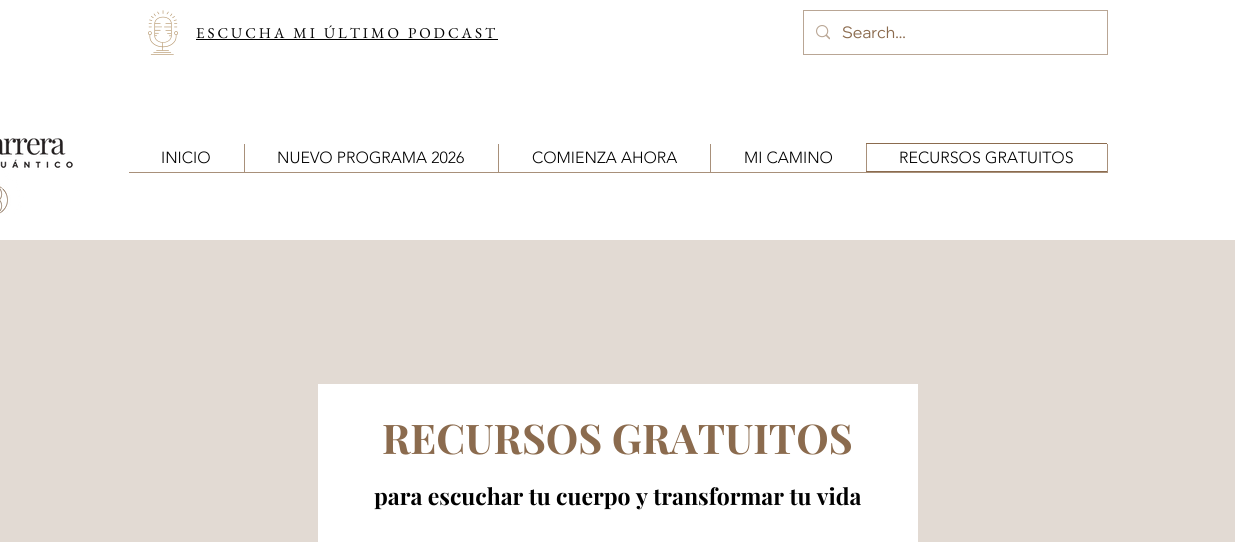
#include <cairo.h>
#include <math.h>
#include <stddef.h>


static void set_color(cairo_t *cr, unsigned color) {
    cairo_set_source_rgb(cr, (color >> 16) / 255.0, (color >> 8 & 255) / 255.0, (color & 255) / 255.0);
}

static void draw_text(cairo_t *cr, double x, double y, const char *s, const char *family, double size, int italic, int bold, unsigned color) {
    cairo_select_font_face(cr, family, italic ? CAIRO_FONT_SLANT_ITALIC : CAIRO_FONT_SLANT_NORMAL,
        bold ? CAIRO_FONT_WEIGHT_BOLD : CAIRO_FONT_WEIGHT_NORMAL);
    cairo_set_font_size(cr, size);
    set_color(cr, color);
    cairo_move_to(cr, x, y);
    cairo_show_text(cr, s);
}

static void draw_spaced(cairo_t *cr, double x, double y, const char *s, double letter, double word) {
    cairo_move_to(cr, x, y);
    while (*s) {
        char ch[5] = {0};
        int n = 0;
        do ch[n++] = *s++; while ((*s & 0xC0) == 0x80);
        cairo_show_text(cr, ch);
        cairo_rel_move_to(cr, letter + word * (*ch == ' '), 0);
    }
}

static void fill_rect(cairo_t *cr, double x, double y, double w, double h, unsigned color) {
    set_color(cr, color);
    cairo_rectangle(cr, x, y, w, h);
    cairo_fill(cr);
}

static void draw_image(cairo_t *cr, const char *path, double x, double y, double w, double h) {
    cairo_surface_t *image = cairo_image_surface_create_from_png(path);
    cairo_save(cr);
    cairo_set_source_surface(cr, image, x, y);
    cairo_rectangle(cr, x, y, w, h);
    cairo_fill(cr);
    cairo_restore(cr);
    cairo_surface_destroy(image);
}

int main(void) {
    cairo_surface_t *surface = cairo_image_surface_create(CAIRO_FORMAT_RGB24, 1235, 542);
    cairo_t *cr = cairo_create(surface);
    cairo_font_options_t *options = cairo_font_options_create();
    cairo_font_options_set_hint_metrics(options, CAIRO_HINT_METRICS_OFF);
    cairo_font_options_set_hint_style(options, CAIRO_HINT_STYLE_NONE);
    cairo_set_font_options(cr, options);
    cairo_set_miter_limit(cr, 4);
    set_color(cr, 0xFFFFFF);
    cairo_paint(cr);
    draw_image(cr, "assets/img1.png", 148, 10, 30, 45);
    cairo_select_font_face(cr, "EB Garamond", CAIRO_FONT_SLANT_NORMAL, CAIRO_FONT_WEIGHT_NORMAL);
    cairo_set_font_size(cr, 15);
    set_color(cr, 0x000000);
    draw_spaced(cr, 196, 38, "ESCUCHA MI ÚLTIMO PODCAST", 3, 0);
    fill_rect(cr, 196, 39, 302, 1, 0x000000);
    cairo_rectangle(cr, 803.5, 10.5, 304, 44);
    set_color(cr, 0xB9A695);
    cairo_set_line_width(cr, 1);
    cairo_stroke(cr);
    draw_image(cr, "assets/img2.png", 816, 25, 14, 15);
    draw_text(cr, 842, 38, "Search...", "Wix Madefor Display", 16, 0, 0, 0x8B6B4E);
    draw_image(cr, "assets/img3.png", 0, 138, 73, 76);
    set_color(cr, 0xA8907A);
    cairo_new_path(cr);
    cairo_move_to(cr, 129, 172);
    cairo_line_to(cr, 129, 173);
    cairo_line_to(cr, 245, 173);
    cairo_line_to(cr, 245, 144);
    cairo_line_to(cr, 244, 144);
    cairo_line_to(cr, 244, 172);
    cairo_close_path(cr);
    cairo_fill(cr);
    draw_text(cr, 161, 163, "INICIO", "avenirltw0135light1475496 Light", 16, 0, 0, 0x000000);
    set_color(cr, 0xA8907A);
    cairo_new_path(cr);
    cairo_move_to(cr, 245, 172);
    cairo_line_to(cr, 245, 173);
    cairo_line_to(cr, 499, 173);
    cairo_line_to(cr, 499, 144);
    cairo_line_to(cr, 498, 144);
    cairo_line_to(cr, 498, 172);
    cairo_close_path(cr);
    cairo_fill(cr);
    draw_text(cr, 277, 163, "NUEVO PROGRAMA 2026", "avenirltw0135light1475496 Light", 16, 0, 0, 0x000000);
    set_color(cr, 0xA8907A);
    cairo_new_path(cr);
    cairo_move_to(cr, 499, 172);
    cairo_line_to(cr, 499, 173);
    cairo_line_to(cr, 711, 173);
    cairo_line_to(cr, 711, 144);
    cairo_line_to(cr, 710, 144);
    cairo_line_to(cr, 710, 172);
    cairo_close_path(cr);
    cairo_fill(cr);
    draw_text(cr, 532, 163, "COMIENZA AHORA", "avenirltw0135light1475496 Light", 16, 0, 0, 0x000000);
    set_color(cr, 0xA8907A);
    cairo_new_path(cr);
    cairo_move_to(cr, 711, 172);
    cairo_line_to(cr, 711, 173);
    cairo_line_to(cr, 867, 173);
    cairo_line_to(cr, 867, 144);
    cairo_line_to(cr, 866, 144);
    cairo_line_to(cr, 866, 172);
    cairo_close_path(cr);
    cairo_fill(cr);
    draw_text(cr, 744, 163, "MI CAMINO", "avenirltw0135light1475496 Light", 16, 0, 0, 0x000000);
    set_color(cr, 0xA8907A);
    cairo_new_path(cr);
    cairo_move_to(cr, 867, 172);
    cairo_line_to(cr, 867, 173);
    cairo_line_to(cr, 1108, 173);
    cairo_line_to(cr, 1108, 144);
    cairo_line_to(cr, 1107, 144);
    cairo_line_to(cr, 1107, 172);
    cairo_close_path(cr);
    cairo_fill(cr);
    fill_rect(cr, 866, 143, 241, 1, 0x8B6B4E);
    fill_rect(cr, 866, 171, 241, 1, 0x8B6B4E);
    draw_text(cr, 899, 163, "RECURSOS GRATUITOS", "avenirltw0135light1475496 Light", 16, 0, 0, 0x000000);
    fill_rect(cr, 0, 240, 1235, 302, 0xE2DAD3);
    fill_rect(cr, 318, 384, 600, 158, 0xFFFFFF);
    draw_text(cr, 382, 454, "RECURSOS GRATUITOS", "Playfair Display", 41, 0, 1, 0x8B6B4E);
    draw_text(cr, 374, 505, "para escuchar tu cuerpo y transformar tu vida", "Playfair Display", 23, 0, 1, 0x000000);
    cairo_surface_write_to_png(surface, "output.png");
    cairo_font_options_destroy(options);
    cairo_destroy(cr);
    cairo_surface_destroy(surface);
    return 0;
}
